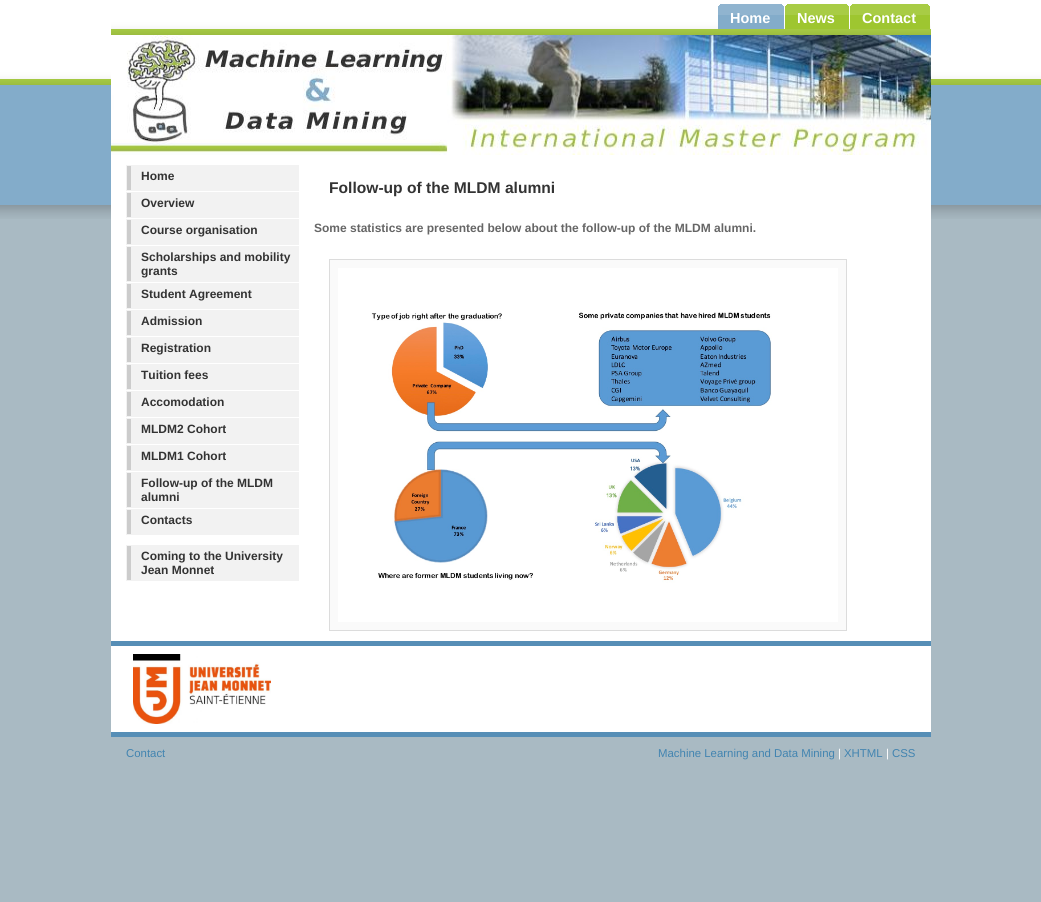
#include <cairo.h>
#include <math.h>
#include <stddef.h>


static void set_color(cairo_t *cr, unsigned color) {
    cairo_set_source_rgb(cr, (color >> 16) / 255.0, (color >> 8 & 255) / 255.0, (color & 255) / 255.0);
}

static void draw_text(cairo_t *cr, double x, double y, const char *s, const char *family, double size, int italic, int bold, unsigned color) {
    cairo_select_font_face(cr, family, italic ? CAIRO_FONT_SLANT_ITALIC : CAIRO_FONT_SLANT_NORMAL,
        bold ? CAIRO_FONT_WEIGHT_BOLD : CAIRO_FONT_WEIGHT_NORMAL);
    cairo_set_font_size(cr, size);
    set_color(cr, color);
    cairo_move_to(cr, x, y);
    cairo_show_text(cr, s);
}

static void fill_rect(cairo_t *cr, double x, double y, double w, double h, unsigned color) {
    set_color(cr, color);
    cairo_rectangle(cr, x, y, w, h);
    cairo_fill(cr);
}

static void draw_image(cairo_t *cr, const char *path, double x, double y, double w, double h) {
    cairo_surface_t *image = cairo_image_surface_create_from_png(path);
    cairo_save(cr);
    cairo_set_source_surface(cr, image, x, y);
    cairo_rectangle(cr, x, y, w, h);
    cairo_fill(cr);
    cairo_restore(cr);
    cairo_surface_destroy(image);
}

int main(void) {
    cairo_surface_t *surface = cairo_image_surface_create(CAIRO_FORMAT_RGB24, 1041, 902);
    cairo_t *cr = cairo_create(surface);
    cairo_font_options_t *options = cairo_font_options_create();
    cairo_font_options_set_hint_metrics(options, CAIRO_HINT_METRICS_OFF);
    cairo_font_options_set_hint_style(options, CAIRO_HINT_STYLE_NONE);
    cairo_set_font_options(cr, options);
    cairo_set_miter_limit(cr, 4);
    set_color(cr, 0xA9BAC3);
    cairo_paint(cr);
    draw_image(cr, "assets/img1.png", 0, 0, 1041, 219);
    fill_rect(cr, 111, 155, 820, 577, 0xFFFFFF);
    draw_image(cr, "assets/img2.png", 111, 0, 820, 35);
    draw_image(cr, "assets/img3.png", 718, 4, 4, 25);
    draw_image(cr, "assets/img4.png", 722, 4, 62, 25);
    draw_text(cr, 730, 23, "Home", "Liberation Sans", 14.5, 0, 1, 0xFFFFFF);
    draw_image(cr, "assets/img5.png", 785, 4, 4, 25);
    draw_image(cr, "assets/img6.png", 789, 4, 60, 25);
    draw_text(cr, 797, 23, "News", "Liberation Sans", 14.5, 0, 1, 0xFFFFFF);
    draw_image(cr, "assets/img5.png", 850, 4, 4, 25);
    draw_image(cr, "assets/img7.png", 854, 4, 76, 25);
    draw_text(cr, 862, 23, "Contact", "Liberation Sans", 14.5, 0, 1, 0xFFFFFF);
    draw_image(cr, "assets/img8.png", 111, 35, 820, 120);
    cairo_rectangle(cr, 126.5, 165.5, 172, 25);
    set_color(cr, 0xF2F2F2);
    cairo_set_line_width(cr, 1);
    cairo_stroke(cr);
    fill_rect(cr, 131, 166, 167, 24, 0xF2F2F2);
    fill_rect(cr, 127, 166, 4, 24, 0xCCCCCC);
    draw_text(cr, 141, 180, "Home", "Liberation Sans", 12, 0, 1, 0x333333);
    cairo_rectangle(cr, 126.5, 192.5, 172, 25);
    set_color(cr, 0xF2F2F2);
    cairo_stroke(cr);
    fill_rect(cr, 131, 193, 167, 24, 0xF2F2F2);
    fill_rect(cr, 127, 193, 4, 24, 0xCCCCCC);
    draw_text(cr, 141, 207, "Overview", "Liberation Sans", 12, 0, 1, 0x333333);
    cairo_rectangle(cr, 126.5, 219.5, 172, 25);
    set_color(cr, 0xF2F2F2);
    cairo_stroke(cr);
    fill_rect(cr, 131, 220, 167, 24, 0xF2F2F2);
    fill_rect(cr, 127, 220, 4, 24, 0xCCCCCC);
    draw_text(cr, 141, 234, "Course organisation", "Liberation Sans", 12, 0, 1, 0x333333);
    cairo_rectangle(cr, 126.5, 246.5, 172, 35);
    set_color(cr, 0xF2F2F2);
    cairo_stroke(cr);
    fill_rect(cr, 131, 247, 167, 34, 0xF2F2F2);
    fill_rect(cr, 127, 247, 4, 34, 0xCCCCCC);
    draw_text(cr, 141, 261, "Scholarships and mobility", "Liberation Sans", 12, 0, 1, 0x333333);
    draw_text(cr, 141, 275, "grants", "Liberation Sans", 12, 0, 1, 0x333333);
    cairo_rectangle(cr, 126.5, 283.5, 172, 25);
    set_color(cr, 0xF2F2F2);
    cairo_stroke(cr);
    fill_rect(cr, 131, 284, 167, 24, 0xF2F2F2);
    fill_rect(cr, 127, 284, 4, 24, 0xCCCCCC);
    draw_text(cr, 141, 298, "Student Agreement", "Liberation Sans", 12, 0, 1, 0x333333);
    cairo_rectangle(cr, 126.5, 310.5, 172, 25);
    set_color(cr, 0xF2F2F2);
    cairo_stroke(cr);
    fill_rect(cr, 131, 311, 167, 24, 0xF2F2F2);
    fill_rect(cr, 127, 311, 4, 24, 0xCCCCCC);
    draw_text(cr, 141, 325, "Admission", "Liberation Sans", 12, 0, 1, 0x333333);
    cairo_rectangle(cr, 126.5, 337.5, 172, 25);
    set_color(cr, 0xF2F2F2);
    cairo_stroke(cr);
    fill_rect(cr, 131, 338, 167, 24, 0xF2F2F2);
    fill_rect(cr, 127, 338, 4, 24, 0xCCCCCC);
    draw_text(cr, 141, 352, "Registration", "Liberation Sans", 12, 0, 1, 0x333333);
    cairo_rectangle(cr, 126.5, 364.5, 172, 25);
    set_color(cr, 0xF2F2F2);
    cairo_stroke(cr);
    fill_rect(cr, 131, 365, 167, 24, 0xF2F2F2);
    fill_rect(cr, 127, 365, 4, 24, 0xCCCCCC);
    draw_text(cr, 141, 379, "Tuition fees", "Liberation Sans", 12, 0, 1, 0x333333);
    cairo_rectangle(cr, 126.5, 391.5, 172, 25);
    set_color(cr, 0xF2F2F2);
    cairo_stroke(cr);
    fill_rect(cr, 131, 392, 167, 24, 0xF2F2F2);
    fill_rect(cr, 127, 392, 4, 24, 0xCCCCCC);
    draw_text(cr, 141, 406, "Accomodation", "Liberation Sans", 12, 0, 1, 0x333333);
    cairo_rectangle(cr, 126.5, 418.5, 172, 25);
    set_color(cr, 0xF2F2F2);
    cairo_stroke(cr);
    fill_rect(cr, 131, 419, 167, 24, 0xF2F2F2);
    fill_rect(cr, 127, 419, 4, 24, 0xCCCCCC);
    draw_text(cr, 141, 433, "MLDM2 Cohort", "Liberation Sans", 12, 0, 1, 0x333333);
    cairo_rectangle(cr, 126.5, 445.5, 172, 25);
    set_color(cr, 0xF2F2F2);
    cairo_stroke(cr);
    fill_rect(cr, 131, 446, 167, 24, 0xF2F2F2);
    fill_rect(cr, 127, 446, 4, 24, 0xCCCCCC);
    draw_text(cr, 141, 460, "MLDM1 Cohort", "Liberation Sans", 12, 0, 1, 0x333333);
    cairo_rectangle(cr, 126.5, 472.5, 172, 35);
    set_color(cr, 0xF2F2F2);
    cairo_stroke(cr);
    fill_rect(cr, 131, 473, 167, 34, 0xF2F2F2);
    fill_rect(cr, 127, 473, 4, 34, 0xCCCCCC);
    draw_text(cr, 141, 487, "Follow-up of the MLDM", "Liberation Sans", 12, 0, 1, 0x333333);
    draw_text(cr, 141, 501, "alumni", "Liberation Sans", 12, 0, 1, 0x333333);
    cairo_rectangle(cr, 126.5, 509.5, 172, 25);
    set_color(cr, 0xF2F2F2);
    cairo_stroke(cr);
    fill_rect(cr, 131, 510, 167, 24, 0xF2F2F2);
    fill_rect(cr, 127, 510, 4, 24, 0xCCCCCC);
    draw_text(cr, 141, 524, "Contacts", "Liberation Sans", 12, 0, 1, 0x333333);
    cairo_rectangle(cr, 126.5, 545.5, 172, 35);
    set_color(cr, 0xF2F2F2);
    cairo_stroke(cr);
    fill_rect(cr, 131, 546, 167, 34, 0xF2F2F2);
    fill_rect(cr, 127, 546, 4, 34, 0xCCCCCC);
    draw_text(cr, 141, 560, "Coming to the University", "Liberation Sans", 12, 0, 1, 0x333333);
    draw_text(cr, 141, 574, "Jean Monnet", "Liberation Sans", 12, 0, 1, 0x333333);
    draw_text(cr, 329, 193, "Follow-up of the MLDM alumni", "Liberation Sans", 15.6, 0, 1, 0x333333);
    draw_text(cr, 314, 232, "Some statistics are presented below about the follow-up of the MLDM alumni.", "Liberation Sans", 12, 0, 1, 0x666666);
    set_color(cr, 0xFAFAFA);
    cairo_rectangle(cr, 329.5, 259.5, 517, 371);
    cairo_fill_preserve(cr);
    set_color(cr, 0xDCDCDC);
    cairo_stroke(cr);
    draw_image(cr, "assets/img9.png", 338, 268, 500, 354);
    fill_rect(cr, 111, 641, 820, 5, 0x568EB6);
    draw_image(cr, "assets/img10.png", 133, 654, 138, 70);
    fill_rect(cr, 111, 732, 820, 5, 0x568EB6);
    draw_text(cr, 126, 757, "Contact", "Liberation Sans", 11.4, 0, 0, 0x4284B0);
    draw_text(cr, 658, 757, "Machine Learning and Data Mining", "Liberation Sans", 11.4, 0, 0, 0x4284B0);
    draw_text(cr, 838, 757, "|", "Liberation Sans", 11.4, 0, 0, 0xFFFFFF);
    draw_text(cr, 844, 757, "XHTML", "Liberation Sans", 11.4, 0, 0, 0x4284B0);
    draw_text(cr, 886, 757, "|", "Liberation Sans", 11.4, 0, 0, 0xFFFFFF);
    draw_text(cr, 892, 757, "CSS", "Liberation Sans", 11.4, 0, 0, 0x4284B0);
    cairo_surface_write_to_png(surface, "output.png");
    cairo_font_options_destroy(options);
    cairo_destroy(cr);
    cairo_surface_destroy(surface);
    return 0;
}
